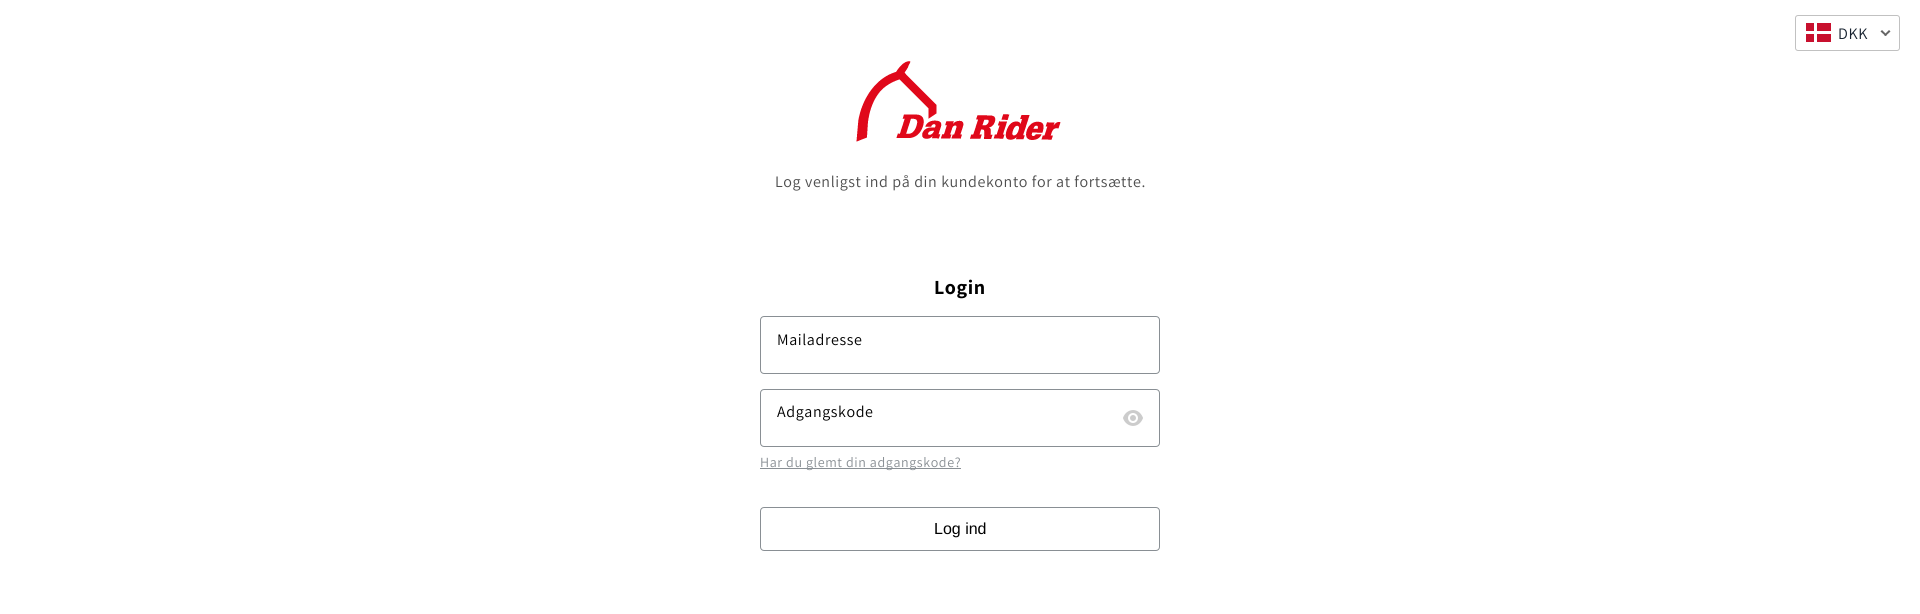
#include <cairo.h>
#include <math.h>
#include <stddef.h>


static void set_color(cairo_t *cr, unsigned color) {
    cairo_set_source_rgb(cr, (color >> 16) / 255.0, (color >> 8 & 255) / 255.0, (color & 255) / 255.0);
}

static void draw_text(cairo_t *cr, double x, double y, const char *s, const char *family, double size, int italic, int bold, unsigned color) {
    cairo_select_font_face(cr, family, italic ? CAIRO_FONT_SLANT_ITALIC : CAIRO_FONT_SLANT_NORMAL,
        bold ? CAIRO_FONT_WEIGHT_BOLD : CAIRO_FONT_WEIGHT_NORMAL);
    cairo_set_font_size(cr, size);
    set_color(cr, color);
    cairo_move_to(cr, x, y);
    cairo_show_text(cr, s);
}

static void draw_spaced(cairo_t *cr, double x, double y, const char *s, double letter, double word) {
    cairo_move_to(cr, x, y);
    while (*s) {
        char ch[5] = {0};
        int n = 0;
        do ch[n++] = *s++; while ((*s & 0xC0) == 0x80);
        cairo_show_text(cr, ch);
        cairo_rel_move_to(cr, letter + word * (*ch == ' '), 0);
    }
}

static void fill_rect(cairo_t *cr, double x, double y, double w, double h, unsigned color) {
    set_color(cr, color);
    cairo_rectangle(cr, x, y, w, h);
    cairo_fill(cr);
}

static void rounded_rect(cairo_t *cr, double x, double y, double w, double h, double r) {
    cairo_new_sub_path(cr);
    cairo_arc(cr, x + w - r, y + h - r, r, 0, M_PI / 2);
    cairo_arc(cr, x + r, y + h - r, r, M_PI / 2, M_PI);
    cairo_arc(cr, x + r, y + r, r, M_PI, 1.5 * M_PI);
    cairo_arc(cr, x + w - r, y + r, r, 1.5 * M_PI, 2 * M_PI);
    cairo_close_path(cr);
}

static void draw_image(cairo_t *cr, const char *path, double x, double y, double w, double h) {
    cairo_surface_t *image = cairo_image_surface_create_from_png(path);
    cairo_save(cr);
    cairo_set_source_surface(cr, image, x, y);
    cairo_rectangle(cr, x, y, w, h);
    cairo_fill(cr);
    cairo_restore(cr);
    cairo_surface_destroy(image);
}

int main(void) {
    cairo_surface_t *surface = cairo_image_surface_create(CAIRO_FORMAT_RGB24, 1920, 614);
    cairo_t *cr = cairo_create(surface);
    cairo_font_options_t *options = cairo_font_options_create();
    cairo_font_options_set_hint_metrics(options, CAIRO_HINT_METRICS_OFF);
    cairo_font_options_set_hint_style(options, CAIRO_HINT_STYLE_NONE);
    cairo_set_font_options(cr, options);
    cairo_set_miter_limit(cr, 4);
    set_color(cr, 0xFFFFFF);
    cairo_paint(cr);
    rounded_rect(cr, 1795.5, 15.5, 104, 35, 2.5);
    set_color(cr, 0xC1C1C1);
    cairo_set_line_width(cr, 1);
    cairo_stroke(cr);
    fill_rect(cr, 1806, 23, 25, 19, 0xC8102E);
    fill_rect(cr, 1814, 23, 3, 19, 0xFFFFFF);
    fill_rect(cr, 1806, 31, 25, 3, 0xFFFFFF);
    cairo_select_font_face(cr, "Assistant", CAIRO_FONT_SLANT_NORMAL, CAIRO_FONT_WEIGHT_NORMAL);
    cairo_set_font_size(cr, 16);
    set_color(cr, 0x17222F);
    draw_spaced(cr, 1838, 39, "DKK", 0.6, 0);
    set_color(cr, 0x666666);
    cairo_new_path(cr);
    cairo_move_to(cr, 1889, 30);
    cairo_line_to(cr, 1890.5, 31.5);
    cairo_line_to(cr, 1885.5, 36);
    cairo_line_to(cr, 1884, 35);
    cairo_close_path(cr);
    cairo_fill(cr);
    cairo_new_path(cr);
    cairo_move_to(cr, 1882, 30);
    cairo_line_to(cr, 1887, 35);
    cairo_line_to(cr, 1885.5, 36);
    cairo_line_to(cr, 1880.5, 31.5);
    cairo_close_path(cr);
    cairo_fill(cr);
    draw_image(cr, "assets/img1.png", 856, 61, 205, 81);
    set_color(cr, 0x4D4D4D);
    draw_spaced(cr, 775, 187, "Log venligst ind på din kundekonto for at fortsætte.", 0.6, 0);
    cairo_select_font_face(cr, "Assistant", CAIRO_FONT_SLANT_NORMAL, CAIRO_FONT_WEIGHT_BOLD);
    cairo_set_font_size(cr, 20);
    set_color(cr, 0x000000);
    draw_spaced(cr, 934, 294, "Login", 0.6, 0);
    rounded_rect(cr, 760.5, 316.5, 399, 57, 3.5);
    set_color(cr, 0x898F94);
    cairo_stroke(cr);
    cairo_select_font_face(cr, "Assistant", CAIRO_FONT_SLANT_NORMAL, CAIRO_FONT_WEIGHT_NORMAL);
    cairo_set_font_size(cr, 16);
    set_color(cr, 0x000000);
    draw_spaced(cr, 777, 345, "Mailadresse", 0.6, 0);
    rounded_rect(cr, 760.5, 389.5, 399, 57, 3.5);
    set_color(cr, 0x898F94);
    cairo_stroke(cr);
    set_color(cr, 0x000000);
    draw_spaced(cr, 777, 417, "Adgangskode", 0.6, 0);
    draw_image(cr, "assets/img2.png", 1123, 410, 20, 16);
    fill_rect(cr, 760, 468, 201, 1, 0x898F94);
    cairo_set_font_size(cr, 14);
    draw_spaced(cr, 760, 467, "Har du glemt din adgangskode?", 0.6, 0);
    rounded_rect(cr, 760.5, 507.5, 399, 43, 3.5);
    cairo_stroke(cr);
    draw_text(cr, 934, 534, "Log ind", "Liberation Sans", 16, 0, 0, 0x000000);
    cairo_surface_write_to_png(surface, "output.png");
    cairo_font_options_destroy(options);
    cairo_destroy(cr);
    cairo_surface_destroy(surface);
    return 0;
}
